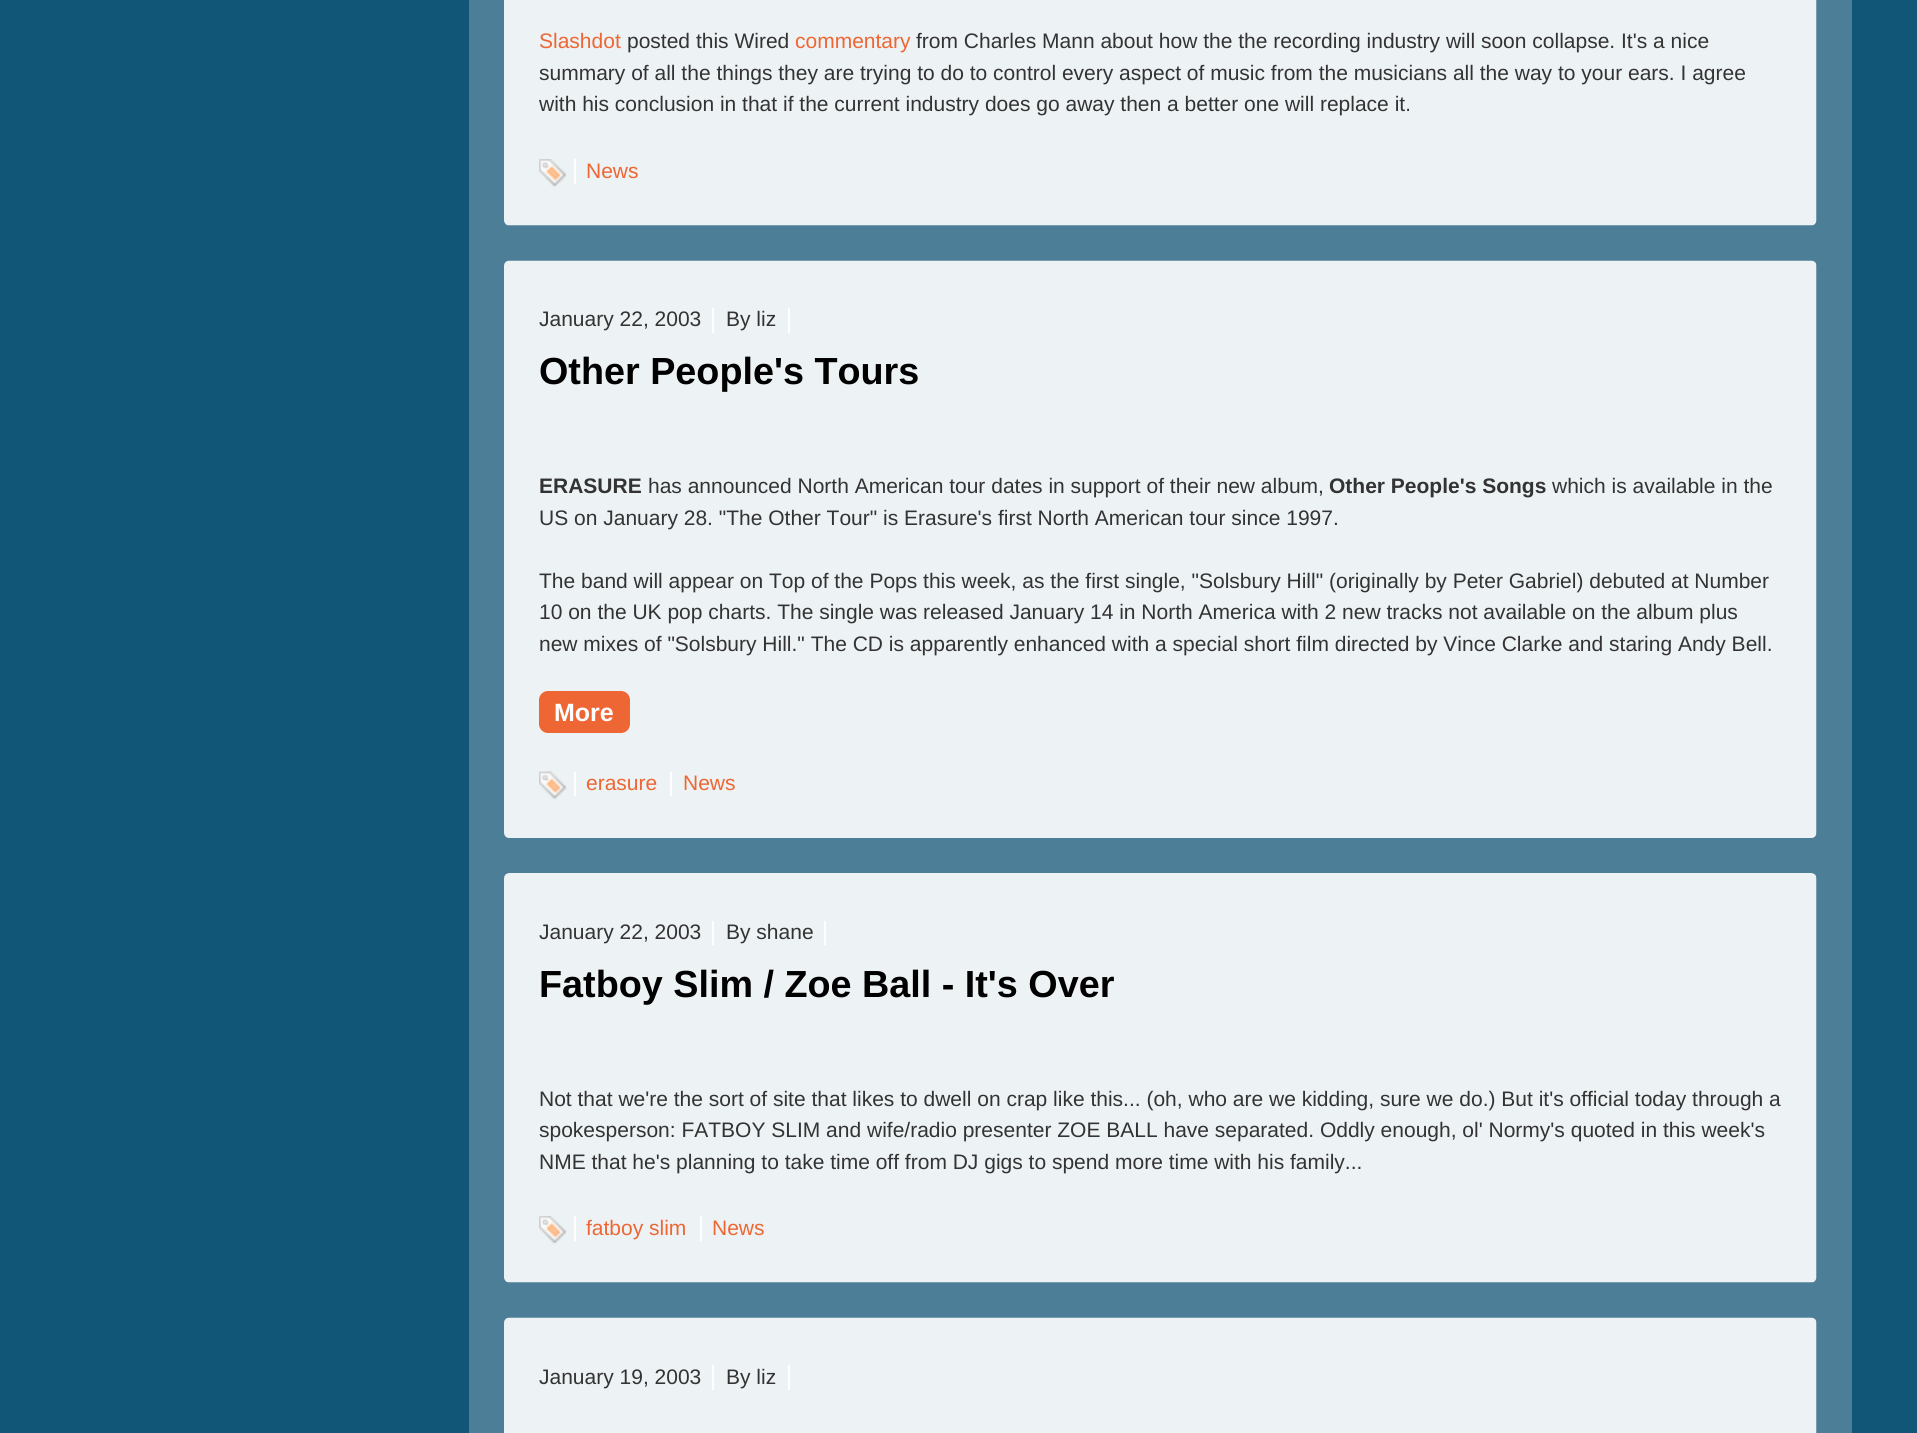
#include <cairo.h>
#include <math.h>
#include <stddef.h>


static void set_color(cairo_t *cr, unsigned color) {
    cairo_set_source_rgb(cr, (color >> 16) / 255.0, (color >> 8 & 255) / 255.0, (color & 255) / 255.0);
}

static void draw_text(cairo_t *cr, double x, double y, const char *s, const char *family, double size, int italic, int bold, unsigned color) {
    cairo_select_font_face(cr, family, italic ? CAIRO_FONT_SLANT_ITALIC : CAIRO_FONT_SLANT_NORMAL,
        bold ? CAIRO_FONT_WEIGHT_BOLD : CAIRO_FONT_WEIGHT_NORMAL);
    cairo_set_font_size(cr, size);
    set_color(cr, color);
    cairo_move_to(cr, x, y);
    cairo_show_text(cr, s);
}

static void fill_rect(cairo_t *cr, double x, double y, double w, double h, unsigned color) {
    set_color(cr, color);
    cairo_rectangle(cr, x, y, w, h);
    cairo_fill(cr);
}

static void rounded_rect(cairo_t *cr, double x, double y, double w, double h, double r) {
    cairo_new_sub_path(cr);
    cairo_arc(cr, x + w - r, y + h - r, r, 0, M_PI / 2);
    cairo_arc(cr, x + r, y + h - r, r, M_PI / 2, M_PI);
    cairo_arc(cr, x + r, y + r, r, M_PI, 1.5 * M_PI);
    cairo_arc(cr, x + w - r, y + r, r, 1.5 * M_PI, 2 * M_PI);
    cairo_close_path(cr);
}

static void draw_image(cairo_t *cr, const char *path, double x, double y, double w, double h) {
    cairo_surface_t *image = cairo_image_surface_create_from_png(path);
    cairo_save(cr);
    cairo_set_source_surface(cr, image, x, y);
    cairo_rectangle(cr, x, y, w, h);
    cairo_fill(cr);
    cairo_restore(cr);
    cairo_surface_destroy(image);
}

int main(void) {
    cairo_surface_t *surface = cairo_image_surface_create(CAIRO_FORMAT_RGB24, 1917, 1433);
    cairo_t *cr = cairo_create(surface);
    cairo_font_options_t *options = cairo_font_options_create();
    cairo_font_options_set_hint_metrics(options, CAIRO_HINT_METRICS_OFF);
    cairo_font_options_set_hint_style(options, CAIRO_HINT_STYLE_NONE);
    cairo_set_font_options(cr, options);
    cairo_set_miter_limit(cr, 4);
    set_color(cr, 0x115577);
    cairo_paint(cr);
    fill_rect(cr, 469, 0, 1383, 1433, 0x4C7F97);
    draw_image(cr, "assets/img1.png", 504, 0, 1313, 226);
    draw_text(cr, 539, 48, "Slashdot", "Liberation Sans", 21, 0, 0, 0xEE6633);
    draw_text(cr, 627, 48, "posted this Wired", "Liberation Sans", 21, 0, 0, 0x333333);
    draw_text(cr, 795, 48, "commentary", "Liberation Sans", 21, 0, 0, 0xEE6633);
    draw_text(cr, 916, 48, "from Charles Mann about how the the recording industry will soon collapse. It's a nice", "Liberation Sans", 21, 0, 0, 0x333333);
    draw_text(cr, 539, 80, "summary of all the things they are trying to do to control every aspect of music from the musicians all the way to your ears. I agree", "Liberation Sans", 21, 0, 0, 0x333333);
    draw_text(cr, 539, 111, "with his conclusion in that if the current industry does go away then a better one will replace it.", "Liberation Sans", 21, 0, 0, 0x333333);
    draw_image(cr, "assets/img2.png", 539, 159, 28, 28);
    draw_text(cr, 586, 178, "News", "Liberation Sans", 21, 0, 0, 0xEE6633);
    fill_rect(cr, 574, 159, 2, 25, 0xFFFFFF);
    draw_image(cr, "assets/img3.png", 504, 260, 1313, 578);
    draw_text(cr, 539, 326, "January 22, 2003", "Liberation Sans", 21, 0, 0, 0x333333);
    fill_rect(cr, 712, 308, 2, 25, 0xFFFFFF);
    draw_text(cr, 726, 326, "By liz", "Liberation Sans", 21, 0, 0, 0x333333);
    fill_rect(cr, 788, 308, 2, 25, 0xFFFFFF);
    draw_text(cr, 539, 384, "Other People's Tours", "Liberation Sans", 37.75, 0, 1, 0x000000);
    draw_text(cr, 539, 493, "ERASURE", "Liberation Sans", 21, 0, 1, 0x333333);
    draw_text(cr, 648, 493, "has announced North American tour dates in support of their new album,", "Liberation Sans", 21, 0, 0, 0x333333);
    draw_text(cr, 1329, 493, "Other People's Songs", "Liberation Sans", 21, 0, 1, 0x333333);
    draw_text(cr, 1552, 493, "which is available in the", "Liberation Sans", 21, 0, 0, 0x333333);
    draw_text(cr, 539, 525, "US on January 28. \"The Other Tour\" is Erasure's first North American tour since 1997.", "Liberation Sans", 21, 0, 0, 0x333333);
    draw_text(cr, 539, 588, "The band will appear on Top of the Pops this week, as the first single, \"Solsbury Hill\" (originally by Peter Gabriel) debuted at Number", "Liberation Sans", 21, 0, 0, 0x333333);
    draw_text(cr, 539, 619, "10 on the UK pop charts. The single was released January 14 in North America with 2 new tracks not available on the album plus", "Liberation Sans", 21, 0, 0, 0x333333);
    draw_text(cr, 539, 651, "new mixes of \"Solsbury Hill.\" The CD is apparently enhanced with a special short film directed by Vince Clarke and staring Andy Bell.", "Liberation Sans", 21, 0, 0, 0x333333);
    set_color(cr, 0xEE6633);
    rounded_rect(cr, 539, 691, 91, 42, 9);
    cairo_fill(cr);
    draw_text(cr, 554, 721, "More", "Liberation Sans", 25, 0, 1, 0xFFFFFF);
    draw_image(cr, "assets/img4.png", 539, 771, 28, 29);
    draw_text(cr, 586, 790, "erasure", "Liberation Sans", 21, 0, 0, 0xEE6633);
    fill_rect(cr, 574, 772, 2, 24, 0xFFFFFF);
    fill_rect(cr, 670, 772, 2, 24, 0xFFFFFF);
    draw_text(cr, 683, 790, "News", "Liberation Sans", 21, 0, 0, 0xEE6633);
    draw_image(cr, "assets/img5.png", 504, 873, 1313, 410);
    draw_text(cr, 539, 939, "January 22, 2003", "Liberation Sans", 21, 0, 0, 0x333333);
    fill_rect(cr, 712, 921, 2, 24, 0xFFFFFF);
    draw_text(cr, 726, 939, "By shane", "Liberation Sans", 21, 0, 0, 0x333333);
    fill_rect(cr, 824, 921, 2, 24, 0xFFFFFF);
    draw_text(cr, 539, 997, "Fatboy Slim / Zoe Ball - It's Over", "Liberation Sans", 37.75, 0, 1, 0x000000);
    draw_text(cr, 539, 1106, "Not that we're the sort of site that likes to dwell on crap like this... (oh, who are we kidding, sure we do.) But it's official today through a", "Liberation Sans", 21, 0, 0, 0x333333);
    draw_text(cr, 539, 1137, "spokesperson: FATBOY SLIM and wife/radio presenter ZOE BALL have separated. Oddly enough, ol' Normy's quoted in this week's", "Liberation Sans", 21, 0, 0, 0x333333);
    draw_text(cr, 539, 1169, "NME that he's planning to take time off from DJ gigs to spend more time with his family...", "Liberation Sans", 21, 0, 0, 0x333333);
    draw_image(cr, "assets/img2.png", 539, 1216, 28, 28);
    draw_text(cr, 586, 1235, "fatboy slim", "Liberation Sans", 21, 0, 0, 0xEE6633);
    fill_rect(cr, 574, 1216, 2, 25, 0xFFFFFF);
    draw_text(cr, 712, 1235, "News", "Liberation Sans", 21, 0, 0, 0xEE6633);
    fill_rect(cr, 700, 1216, 2, 25, 0xFFFFFF);
    draw_image(cr, "assets/img6.png", 504, 1317, 1313, 116);
    draw_text(cr, 539, 1384, "January 19, 2003", "Liberation Sans", 21, 0, 0, 0x333333);
    fill_rect(cr, 712, 1365, 2, 25, 0xFFFFFF);
    draw_text(cr, 726, 1384, "By liz", "Liberation Sans", 21, 0, 0, 0x333333);
    fill_rect(cr, 788, 1365, 2, 25, 0xFFFFFF);
    cairo_surface_write_to_png(surface, "output.png");
    cairo_font_options_destroy(options);
    cairo_destroy(cr);
    cairo_surface_destroy(surface);
    return 0;
}
